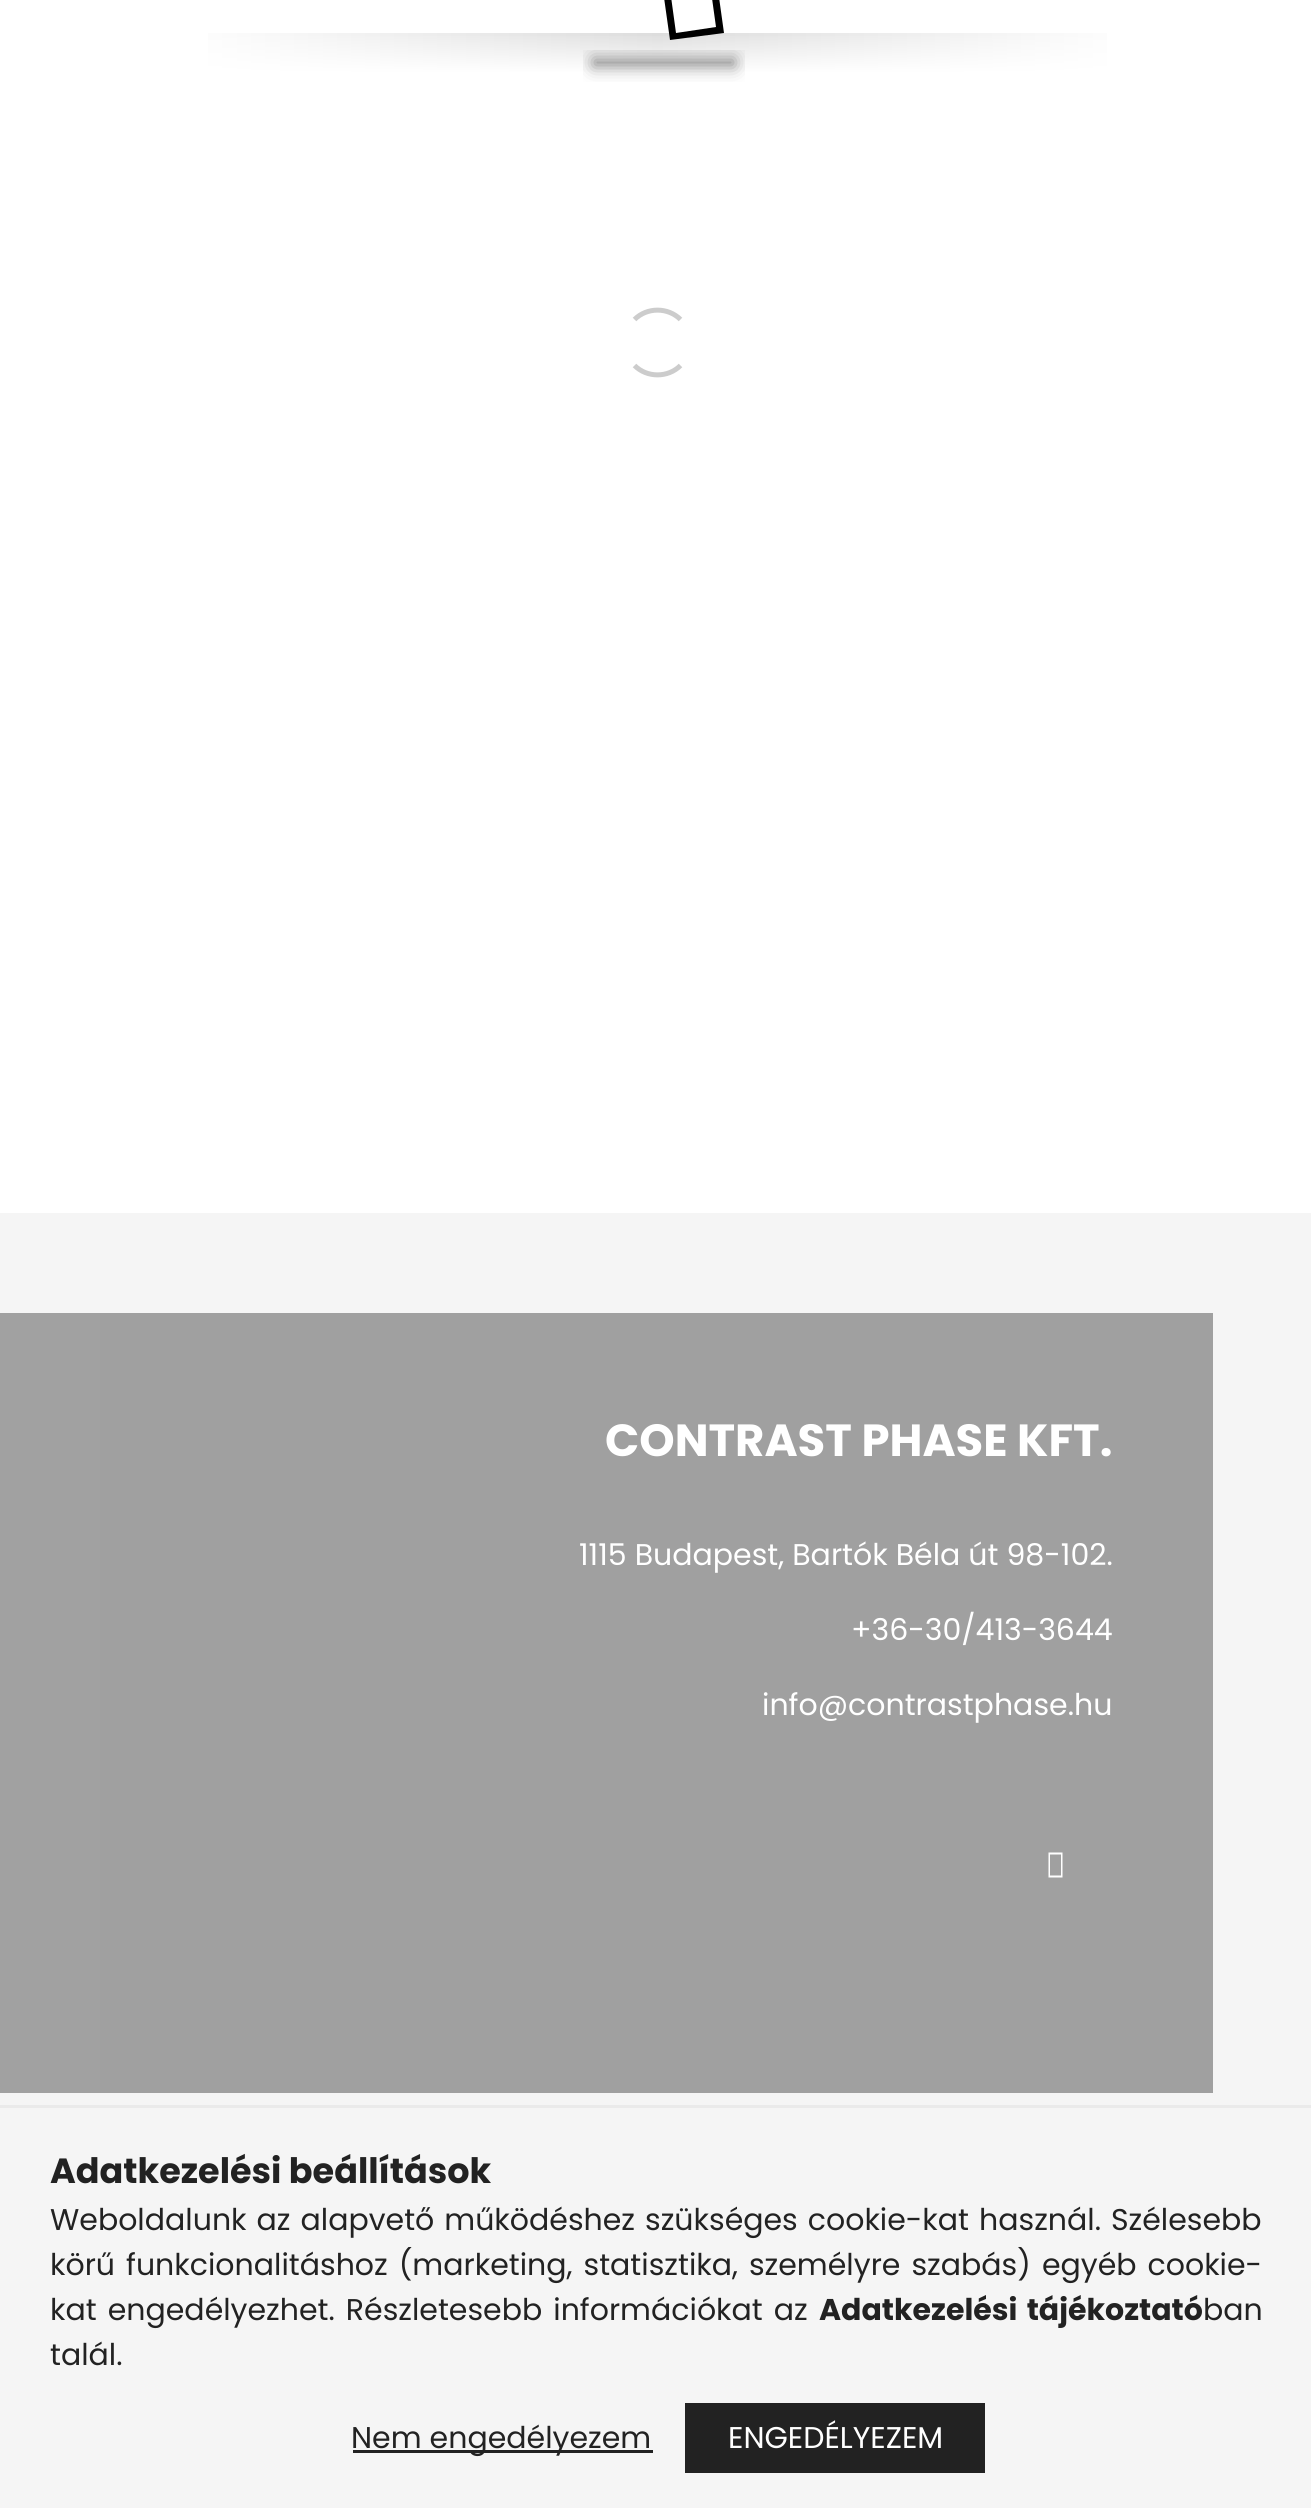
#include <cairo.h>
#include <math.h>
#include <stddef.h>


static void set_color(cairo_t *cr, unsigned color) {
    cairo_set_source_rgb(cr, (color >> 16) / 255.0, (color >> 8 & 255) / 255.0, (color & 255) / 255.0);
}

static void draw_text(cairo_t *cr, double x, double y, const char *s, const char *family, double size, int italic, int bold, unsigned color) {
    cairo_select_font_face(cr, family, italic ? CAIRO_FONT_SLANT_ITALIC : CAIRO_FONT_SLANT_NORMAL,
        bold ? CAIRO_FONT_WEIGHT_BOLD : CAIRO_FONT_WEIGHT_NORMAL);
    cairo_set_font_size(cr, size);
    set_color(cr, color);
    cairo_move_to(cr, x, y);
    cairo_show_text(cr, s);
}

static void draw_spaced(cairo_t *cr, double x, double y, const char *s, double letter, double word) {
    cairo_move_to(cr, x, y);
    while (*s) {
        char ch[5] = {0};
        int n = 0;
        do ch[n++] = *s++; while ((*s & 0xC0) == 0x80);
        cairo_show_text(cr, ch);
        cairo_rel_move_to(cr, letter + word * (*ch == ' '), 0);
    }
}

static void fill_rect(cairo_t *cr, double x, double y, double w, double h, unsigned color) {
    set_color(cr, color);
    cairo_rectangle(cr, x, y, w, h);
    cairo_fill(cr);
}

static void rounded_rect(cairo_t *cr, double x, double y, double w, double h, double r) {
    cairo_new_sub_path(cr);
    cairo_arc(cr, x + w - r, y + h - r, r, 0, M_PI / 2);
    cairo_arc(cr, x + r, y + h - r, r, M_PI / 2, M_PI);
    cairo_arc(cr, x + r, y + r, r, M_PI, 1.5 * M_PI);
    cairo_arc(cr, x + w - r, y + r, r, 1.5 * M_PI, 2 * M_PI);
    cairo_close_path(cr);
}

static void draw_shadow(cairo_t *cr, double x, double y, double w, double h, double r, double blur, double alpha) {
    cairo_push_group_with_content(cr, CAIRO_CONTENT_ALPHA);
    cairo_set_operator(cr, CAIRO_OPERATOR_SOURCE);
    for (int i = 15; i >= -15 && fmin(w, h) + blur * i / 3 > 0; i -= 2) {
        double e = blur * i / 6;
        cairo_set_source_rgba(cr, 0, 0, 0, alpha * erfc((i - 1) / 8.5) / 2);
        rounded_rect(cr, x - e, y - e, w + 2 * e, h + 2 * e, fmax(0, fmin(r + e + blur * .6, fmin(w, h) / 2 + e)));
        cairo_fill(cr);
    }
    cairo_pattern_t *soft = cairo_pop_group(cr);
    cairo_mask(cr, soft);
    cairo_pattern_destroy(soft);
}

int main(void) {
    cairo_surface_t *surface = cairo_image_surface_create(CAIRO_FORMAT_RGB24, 1311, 2508);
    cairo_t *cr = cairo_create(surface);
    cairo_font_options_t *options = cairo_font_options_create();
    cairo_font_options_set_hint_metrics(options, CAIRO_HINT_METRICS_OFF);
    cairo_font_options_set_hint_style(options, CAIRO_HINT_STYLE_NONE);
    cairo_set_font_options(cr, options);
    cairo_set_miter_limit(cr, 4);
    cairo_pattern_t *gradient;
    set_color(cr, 0xFFFFFF);
    cairo_paint(cr);
    gradient = cairo_pattern_create_linear(51, 53, 1264, 52);
    cairo_pattern_add_color_stop_rgba(gradient, 0.1, 1, 1, 1, 1);
    cairo_pattern_add_color_stop_rgba(gradient, 0.5, 0.867, 0.867, 0.867, 1);
    cairo_pattern_add_color_stop_rgba(gradient, 0.9, 1, 1, 1, 1);
    cairo_set_source(cr, gradient);
    cairo_pattern_destroy(gradient);
    cairo_rectangle(cr, 208, 33, 899, 40);
    cairo_fill(cr);
    gradient = cairo_pattern_create_linear(658, 73, 658, 33);
    cairo_pattern_add_color_stop_rgba(gradient, 0, 1, 1, 1, 1);
    cairo_pattern_add_color_stop_rgba(gradient, 1, 1, 1, 1, 0);
    cairo_set_source(cr, gradient);
    cairo_pattern_destroy(gradient);
    cairo_rectangle(cr, 208, 36, 899, 37);
    cairo_fill(cr);
    cairo_save(cr);
    cairo_rectangle(cr, 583, 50, 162, 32);
    cairo_clip(cr);
    set_color(cr, 0x808080);
    draw_shadow(cr, 595, 60, 138, 5, 0, 9, 1);
    cairo_restore(cr);
    set_color(cr, 0x000000);
    cairo_new_path(cr);
    cairo_move_to(cr, 711, -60);
    cairo_line_to(cr, 724, 33);
    cairo_line_to(cr, 670, 40);
    cairo_line_to(cr, 657, -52);
    cairo_close_path(cr);
    cairo_move_to(cr, 705, -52);
    cairo_line_to(cr, 665, -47);
    cairo_line_to(cr, 676, 33);
    cairo_line_to(cr, 716, 27);
    cairo_close_path(cr);
    cairo_fill(cr);
    cairo_new_path(cr);
    cairo_move_to(cr, 634.5, 319.5);
    cairo_curve_to(cr, 647, 307, 668, 307, 680.5, 319.5);
    set_color(cr, 0xCCCCCC);
    cairo_set_line_width(cr, 5);
    cairo_stroke(cr);
    cairo_new_path(cr);
    cairo_move_to(cr, 680.5, 365.5);
    cairo_curve_to(cr, 668, 378, 647, 378, 634.5, 365.5);
    cairo_stroke(cr);
    fill_rect(cr, 0, 1213, 1311, 892, 0xF5F5F5);
    fill_rect(cr, 100, 1313, 1113, 780, 0xA0A0A0);
    fill_rect(cr, 0, 1313, 100, 780, 0xA1A1A1);
    draw_text(cr, 605, 1456, "CONTRAST PHASE KFT.", "Poppins", 45, 0, 1, 0xFFFFFF);
    draw_text(cr, 579, 1565, "1115 Budapest, Bartók Béla út 98-102.", "Poppins", 30, 0, 0, 0xFFFFFF);
    draw_text(cr, 851, 1640, "+36-30/413-3644", "Poppins", 30, 0, 0, 0xFFFFFF);
    draw_text(cr, 762, 1715, "info@contrastphase.hu", "Poppins", 30, 0, 0, 0xFFFFFF);
    cairo_new_path(cr);
    cairo_move_to(cr, 1048.5, 1877.5);
    cairo_line_to(cr, 1048.5, 1852.5);
    cairo_line_to(cr, 1062.5, 1852.5);
    cairo_line_to(cr, 1062.5, 1877.5);
    cairo_close_path(cr);
    cairo_move_to(cr, 1050, 1875.5);
    cairo_line_to(cr, 1061, 1875.5);
    cairo_line_to(cr, 1061, 1854.5);
    cairo_line_to(cr, 1050, 1854.5);
    cairo_close_path(cr);
    cairo_fill(cr);
    fill_rect(cr, 0, 2108, 1311, 400, 0xF5F5F5);
    fill_rect(cr, 0, 2105, 1311, 3, 0xEAEAEA);
    draw_text(cr, 50, 2183, "Adatkezelési beállítások", "Poppins", 35, 0, 1, 0x222222);
    cairo_select_font_face(cr, "Poppins", CAIRO_FONT_SLANT_NORMAL, CAIRO_FONT_WEIGHT_NORMAL);
    cairo_set_font_size(cr, 30);
    draw_spaced(cr, 50, 2230, "Weboldalunk az alapvető működéshez szükséges cookie-kat használ. Szélesebb", 0, 2);
    draw_spaced(cr, 50, 2275, "körű funkcionalitáshoz (marketing, statisztika, személyre szabás) egyéb cookie-", 0, 3);
    draw_spaced(cr, 50, 2320, "kat engedélyezhet. Részletesebb információkat az", 0, 3);
    cairo_select_font_face(cr, "Poppins", CAIRO_FONT_SLANT_NORMAL, CAIRO_FONT_WEIGHT_BOLD);
    draw_spaced(cr, 819, 2320, "Adatkezelési tájékoztató", 0, 3);
    draw_text(cr, 1203, 2320, "ban", "Poppins", 30, 0, 0, 0x222222);
    draw_text(cr, 50, 2365, "talál.", "Poppins", 30, 0, 0, 0x222222);
    fill_rect(cr, 353, 2450, 300, 3, 0x222222);
    draw_text(cr, 351, 2448, "Nem engedélyezem", "Poppins", 30, 0, 0, 0x222222);
    gradient = cairo_pattern_create_linear(85, 2438, 985, 2438);
    cairo_pattern_add_color_stop_rgba(gradient, 0, 0, 0, 0, 1);
    cairo_pattern_add_color_stop_rgba(gradient, 0.33, 0, 0, 0, 1);
    cairo_pattern_add_color_stop_rgba(gradient, 0.67, 0.133, 0.133, 0.133, 1);
    cairo_pattern_add_color_stop_rgba(gradient, 1, 0.133, 0.133, 0.133, 1);
    cairo_set_source(cr, gradient);
    cairo_pattern_destroy(gradient);
    cairo_rectangle(cr, 685, 2403, 300, 70);
    cairo_fill(cr);
    draw_text(cr, 728, 2448, "ENGEDÉLYEZEM", "Poppins", 30, 0, 0, 0xFFFFFF);
    cairo_surface_write_to_png(surface, "output.png");
    cairo_font_options_destroy(options);
    cairo_destroy(cr);
    cairo_surface_destroy(surface);
    return 0;
}
